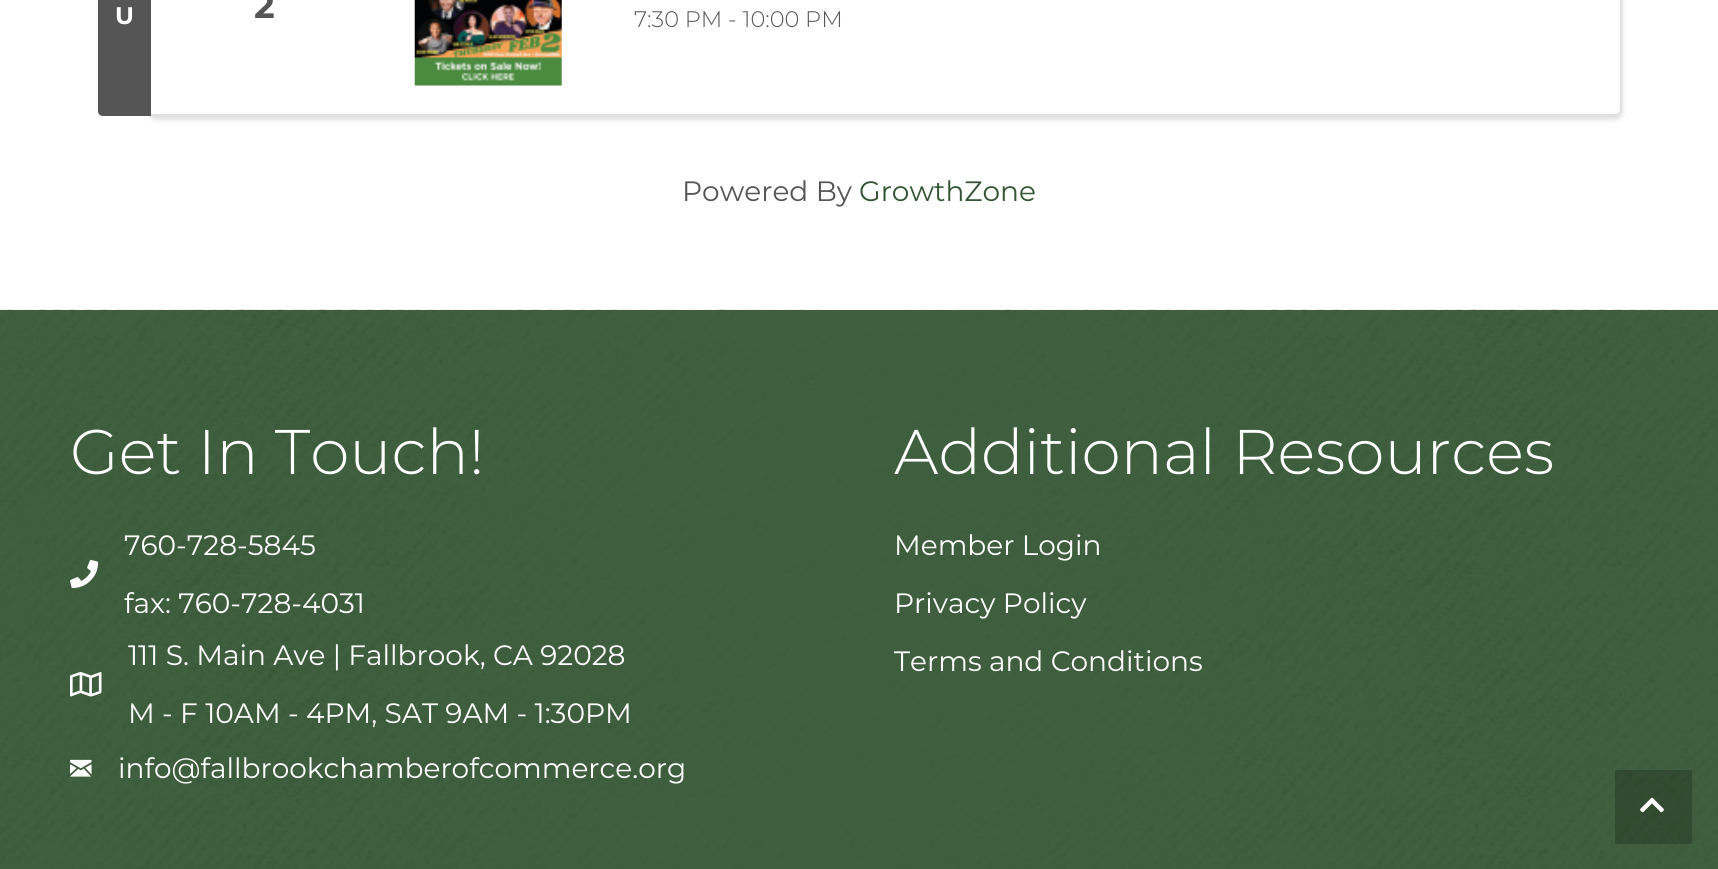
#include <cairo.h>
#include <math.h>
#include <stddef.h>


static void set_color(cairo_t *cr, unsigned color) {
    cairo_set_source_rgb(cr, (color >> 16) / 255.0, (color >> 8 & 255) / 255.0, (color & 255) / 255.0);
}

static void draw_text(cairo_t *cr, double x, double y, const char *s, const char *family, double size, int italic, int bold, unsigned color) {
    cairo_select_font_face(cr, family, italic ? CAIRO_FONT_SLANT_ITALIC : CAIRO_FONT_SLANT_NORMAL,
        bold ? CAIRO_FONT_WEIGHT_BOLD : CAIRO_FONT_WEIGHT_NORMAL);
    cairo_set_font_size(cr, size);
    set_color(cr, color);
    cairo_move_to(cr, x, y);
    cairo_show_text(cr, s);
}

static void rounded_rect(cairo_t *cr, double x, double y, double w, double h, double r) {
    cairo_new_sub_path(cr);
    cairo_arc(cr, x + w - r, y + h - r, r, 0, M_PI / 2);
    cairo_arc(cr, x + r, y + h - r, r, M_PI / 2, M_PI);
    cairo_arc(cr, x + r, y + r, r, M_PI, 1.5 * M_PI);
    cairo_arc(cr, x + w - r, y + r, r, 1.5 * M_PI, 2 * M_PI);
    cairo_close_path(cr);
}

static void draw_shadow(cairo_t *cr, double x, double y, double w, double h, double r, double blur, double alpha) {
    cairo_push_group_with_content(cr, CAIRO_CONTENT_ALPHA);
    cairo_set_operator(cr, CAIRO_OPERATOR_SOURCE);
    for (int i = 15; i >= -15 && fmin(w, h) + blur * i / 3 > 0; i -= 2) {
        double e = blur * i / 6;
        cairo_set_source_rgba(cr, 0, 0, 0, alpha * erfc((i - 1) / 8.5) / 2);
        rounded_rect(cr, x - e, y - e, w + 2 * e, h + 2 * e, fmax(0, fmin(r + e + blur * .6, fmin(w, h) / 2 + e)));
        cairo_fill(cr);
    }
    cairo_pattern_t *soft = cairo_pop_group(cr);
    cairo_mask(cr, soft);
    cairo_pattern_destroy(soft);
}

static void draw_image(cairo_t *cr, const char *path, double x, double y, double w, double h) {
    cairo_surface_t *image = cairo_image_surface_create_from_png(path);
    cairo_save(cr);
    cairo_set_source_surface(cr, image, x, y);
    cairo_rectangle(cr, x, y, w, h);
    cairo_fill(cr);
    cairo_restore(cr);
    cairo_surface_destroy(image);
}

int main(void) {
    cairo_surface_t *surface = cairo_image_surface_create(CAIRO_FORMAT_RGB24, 1718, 869);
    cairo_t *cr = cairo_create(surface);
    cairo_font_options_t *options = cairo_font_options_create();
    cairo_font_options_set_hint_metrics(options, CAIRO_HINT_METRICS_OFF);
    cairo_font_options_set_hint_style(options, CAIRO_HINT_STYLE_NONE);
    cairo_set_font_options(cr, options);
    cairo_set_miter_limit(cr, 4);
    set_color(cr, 0xFFFFFF);
    cairo_paint(cr);
    set_color(cr, 0x000000);
    draw_shadow(cr, 149, -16, 1473, 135, 7, 3, 0.15);
    set_color(cr, 0xFFFFFF);
    cairo_new_path(cr);
    cairo_move_to(cr, 149, -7);
    cairo_line_to(cr, 1615, -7);
    cairo_curve_to(cr, 1619, -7, 1622, -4, 1622, 0);
    cairo_line_to(cr, 1622, 109);
    cairo_curve_to(cr, 1622, 113, 1619, 116, 1615, 116);
    cairo_line_to(cr, 149, 116);
    cairo_close_path(cr);
    cairo_fill(cr);
    cairo_new_path(cr);
    cairo_move_to(cr, 150, -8);
    cairo_line_to(cr, 1615, -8);
    cairo_curve_to(cr, 1618.5, -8, 1621, -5.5, 1621, -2);
    cairo_line_to(cr, 1621, 109);
    cairo_curve_to(cr, 1621, 112.5, 1618.5, 115, 1615, 115);
    cairo_line_to(cr, 150, 115);
    cairo_close_path(cr);
    cairo_set_source_rgba(cr, 0, 0, 0, 0.12);
    cairo_stroke(cr);
    set_color(cr, 0x555555);
    cairo_new_path(cr);
    cairo_move_to(cr, 103, -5);
    cairo_line_to(cr, 151, -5);
    cairo_line_to(cr, 151, 116);
    cairo_line_to(cr, 103, 116);
    cairo_curve_to(cr, 100, 116, 98, 114, 98, 111);
    cairo_line_to(cr, 98, 0);
    cairo_curve_to(cr, 98, -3, 100, -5, 103, -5);
    cairo_close_path(cr);
    cairo_fill(cr);
    draw_text(cr, 115, 24, "U", "Montserrat", 24, 0, 1, 0xFFFFFF);
    draw_text(cr, 254, 18, "2", "Montserrat", 35, 0, 1, 0x555555);
    draw_image(cr, "assets/img1.png", 414, 0, 148, 86);
    draw_text(cr, 634, 27, "7:30 PM - 10:00 PM", "Montserrat Light", 22.5, 0, 0, 0x555555);
    draw_text(cr, 682, 201, "Powered By", "Montserrat", 28, 0, 0, 0x555555);
    draw_text(cr, 859, 201, "GrowthZone", "Montserrat", 28, 0, 0, 0x335533);
    draw_image(cr, "assets/img2.png", 0, 309, 1718, 560);
    draw_text(cr, 70, 474, "Get In Touch!", "Montserrat Light", 63, 0, 0, 0xFFFFFF);
    draw_image(cr, "assets/img3.png", 70, 560, 29, 28);
    draw_text(cr, 124, 555, "760-728-5845", "Montserrat", 28, 0, 0, 0xFFFFFF);
    draw_text(cr, 124, 613, "fax: 760-728-4031", "Montserrat", 28, 0, 0, 0xFFFFFF);
    draw_image(cr, "assets/img4.png", 70, 672, 32, 25);
    draw_text(cr, 128, 665, "111 S. Main Ave | Fallbrook, CA 92028", "Montserrat", 28, 0, 0, 0xFFFFFF);
    draw_text(cr, 128, 723, "M - F 10AM - 4PM, SAT 9AM - 1:30PM", "Montserrat", 28, 0, 0, 0xFFFFFF);
    draw_image(cr, "assets/img5.png", 70, 759, 22, 18);
    draw_text(cr, 118, 778, "info@fallbrookchamberofcommerce.org", "Montserrat", 28, 0, 0, 0xFFFFFF);
    draw_text(cr, 894, 474, "Additional Resources", "Montserrat Light", 63, 0, 0, 0xFFFFFF);
    draw_text(cr, 894, 555, "Member Login", "Montserrat", 28, 0, 0, 0xFFFFFF);
    draw_text(cr, 894, 613, "Privacy Policy", "Montserrat", 28, 0, 0, 0xFFFFFF);
    draw_text(cr, 894, 671, "Terms and Conditions", "Montserrat", 28, 0, 0, 0xFFFFFF);
    cairo_set_source_rgba(cr, 0, 0, 0, 0.2);
    cairo_rectangle(cr, 1615, 770, 77, 74);
    cairo_fill(cr);
    draw_image(cr, "assets/img6.png", 1640, 797, 24, 16);
    cairo_surface_write_to_png(surface, "output.png");
    cairo_font_options_destroy(options);
    cairo_destroy(cr);
    cairo_surface_destroy(surface);
    return 0;
}
